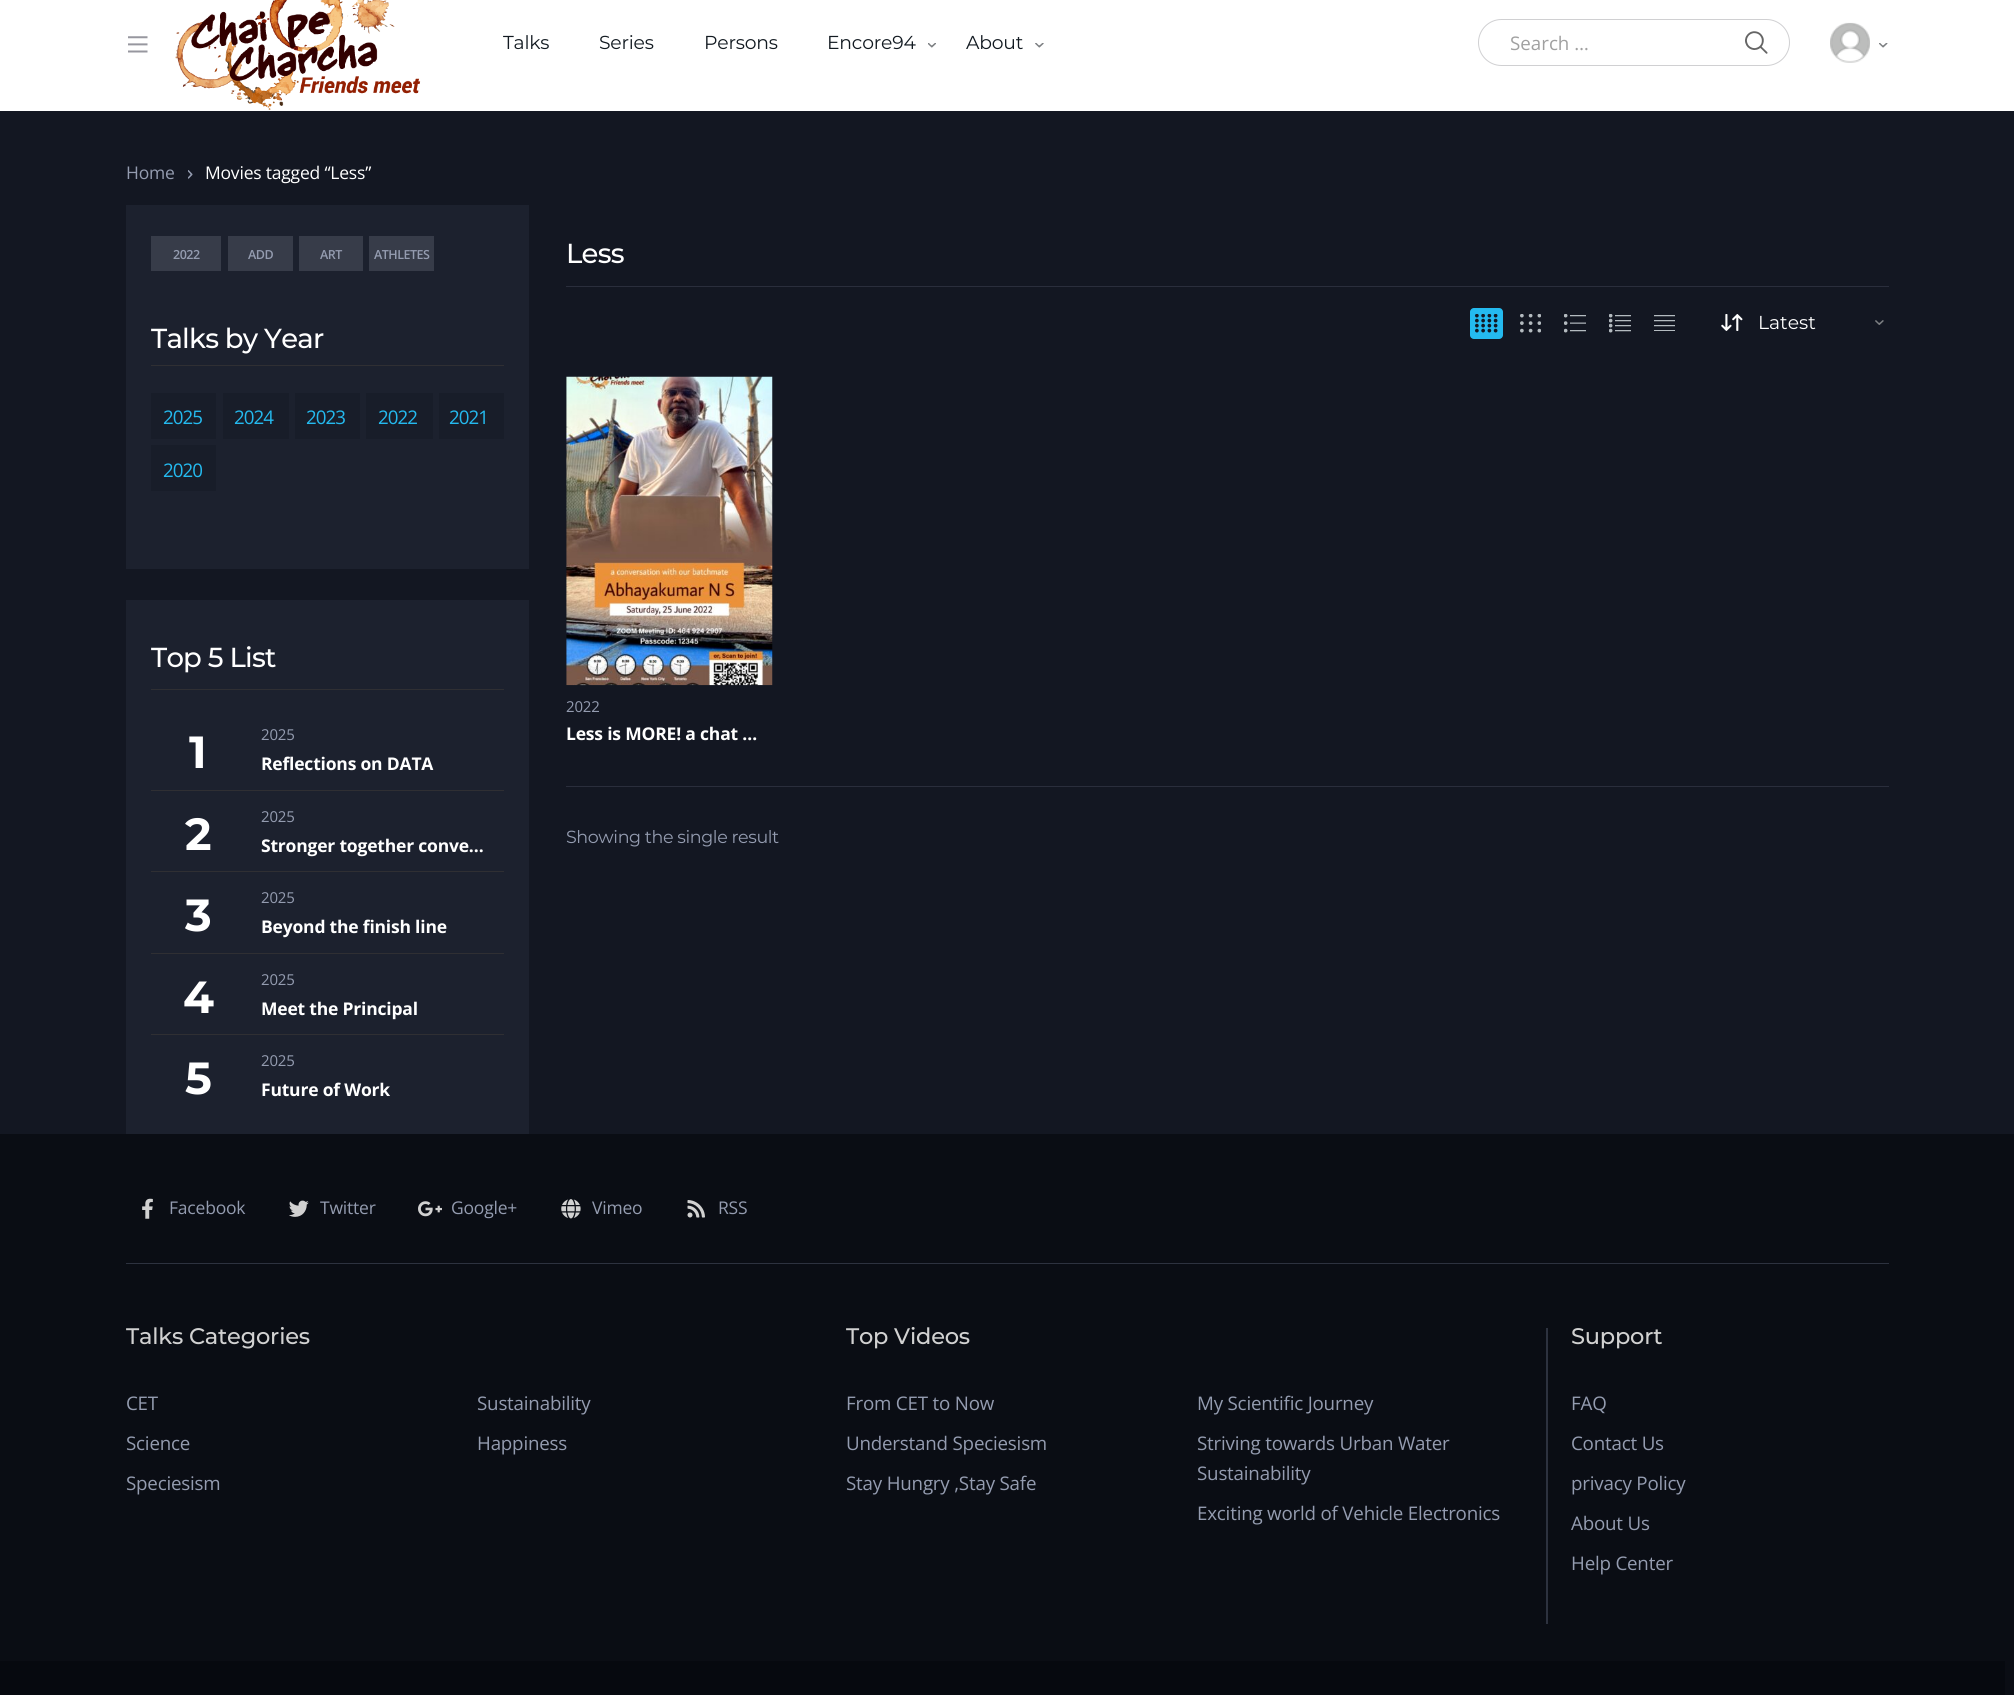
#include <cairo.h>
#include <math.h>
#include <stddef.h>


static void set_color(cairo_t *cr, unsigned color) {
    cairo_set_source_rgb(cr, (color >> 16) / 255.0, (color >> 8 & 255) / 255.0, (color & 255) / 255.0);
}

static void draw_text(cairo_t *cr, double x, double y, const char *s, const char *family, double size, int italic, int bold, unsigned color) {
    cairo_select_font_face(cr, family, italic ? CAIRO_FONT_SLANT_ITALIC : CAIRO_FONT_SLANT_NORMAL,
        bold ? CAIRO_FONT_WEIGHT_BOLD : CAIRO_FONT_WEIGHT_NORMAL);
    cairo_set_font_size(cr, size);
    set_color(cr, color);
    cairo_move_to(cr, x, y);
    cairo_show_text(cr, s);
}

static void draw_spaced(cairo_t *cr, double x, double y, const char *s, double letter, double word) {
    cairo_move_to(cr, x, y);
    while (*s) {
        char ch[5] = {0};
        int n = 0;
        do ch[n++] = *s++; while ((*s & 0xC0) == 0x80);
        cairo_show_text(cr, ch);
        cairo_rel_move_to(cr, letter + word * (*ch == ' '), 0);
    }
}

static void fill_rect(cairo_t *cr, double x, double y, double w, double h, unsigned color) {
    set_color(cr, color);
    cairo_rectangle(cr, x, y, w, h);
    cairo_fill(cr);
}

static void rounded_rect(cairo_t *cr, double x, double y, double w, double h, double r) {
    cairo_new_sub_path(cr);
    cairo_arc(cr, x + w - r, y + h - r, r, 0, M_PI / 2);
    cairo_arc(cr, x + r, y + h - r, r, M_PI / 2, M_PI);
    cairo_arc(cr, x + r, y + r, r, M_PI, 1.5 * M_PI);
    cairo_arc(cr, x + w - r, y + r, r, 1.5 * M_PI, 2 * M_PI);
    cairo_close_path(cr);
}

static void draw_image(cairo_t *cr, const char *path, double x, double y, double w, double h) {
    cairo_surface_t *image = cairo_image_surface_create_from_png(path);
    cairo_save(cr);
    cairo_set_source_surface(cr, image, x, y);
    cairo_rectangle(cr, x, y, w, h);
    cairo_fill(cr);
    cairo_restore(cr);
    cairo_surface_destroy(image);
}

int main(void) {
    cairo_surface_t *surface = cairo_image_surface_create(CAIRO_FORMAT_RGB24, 2014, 1695);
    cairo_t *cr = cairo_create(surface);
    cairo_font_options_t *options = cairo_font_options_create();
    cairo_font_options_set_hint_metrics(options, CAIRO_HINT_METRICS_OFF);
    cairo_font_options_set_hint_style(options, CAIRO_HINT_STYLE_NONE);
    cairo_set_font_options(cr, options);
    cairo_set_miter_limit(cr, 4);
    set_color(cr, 0x131722);
    cairo_paint(cr);
    fill_rect(cr, 0, 0, 2014, 111, 0xFFFFFF);
    draw_image(cr, "assets/img1.png", 128, 36, 20, 17);
    draw_image(cr, "assets/img2.png", 175, 0, 246, 110);
    cairo_select_font_face(cr, "Montserrat", CAIRO_FONT_SLANT_NORMAL, CAIRO_FONT_WEIGHT_NORMAL);
    cairo_set_font_size(cr, 18.75);
    set_color(cr, 0x121A21);
    draw_spaced(cr, 503, 49, "Talks", -0.2, 0);
    draw_spaced(cr, 599, 49, "Series", -0.2, 0);
    draw_spaced(cr, 704, 49, "Persons", -0.2, 0);
    draw_spaced(cr, 827, 49, "Encore94", -0.2, 0);
    draw_image(cr, "assets/img3.png", 928, 43, 8, 5);
    draw_spaced(cr, 966, 49, "About", -0.2, 0);
    draw_image(cr, "assets/img4.png", 1035, 43, 9, 5);
    rounded_rect(cr, 1478.5, 19.5, 311, 46, 23);
    set_color(cr, 0xD0D0D2);
    cairo_set_line_width(cr, 1);
    cairo_stroke(cr);
    draw_text(cr, 1510, 50, "Search …", "Open Sans", 18.75, 0, 0, 0xA0A0A0);
    draw_image(cr, "assets/img5.png", 1745, 31, 23, 23);
    draw_image(cr, "assets/img6.png", 1830, 22, 40, 41);
    draw_image(cr, "assets/img7.png", 1879, 43, 9, 5);
    cairo_set_font_size(cr, 17.5);
    set_color(cr, 0x949CB0);
    draw_spaced(cr, 126, 179, "Home", -0.2, 0);
    draw_image(cr, "assets/img8.png", 188, 170, 5, 9);
    set_color(cr, 0xFFFFFF);
    draw_spaced(cr, 205, 179, "Movies tagged “Less”", -0.2, 0);
    fill_rect(cr, 126, 205, 403, 364, 0x1C212E);
    fill_rect(cr, 151, 236, 70, 35, 0x373C49);
    cairo_select_font_face(cr, "Open Sans SemiBold", CAIRO_FONT_SLANT_NORMAL, CAIRO_FONT_WEIGHT_NORMAL);
    cairo_set_font_size(cr, 12.5);
    set_color(cr, 0x949CB0);
    draw_spaced(cr, 173, 259, "2022", -0.5, 0);
    fill_rect(cr, 228, 236, 65, 35, 0x373C49);
    set_color(cr, 0x949CB0);
    draw_spaced(cr, 248, 259, "ADD", -0.5, 0);
    fill_rect(cr, 299, 236, 64, 35, 0x373C49);
    set_color(cr, 0x949CB0);
    draw_spaced(cr, 320, 259, "ART", -0.5, 0);
    fill_rect(cr, 369, 236, 65, 35, 0x373C49);
    set_color(cr, 0x949CB0);
    draw_spaced(cr, 374, 259, "ATHLETES", -0.5, 0);
    fill_rect(cr, 151, 365, 353, 1, 0x2F2F33);
    cairo_select_font_face(cr, "Montserrat Medium", CAIRO_FONT_SLANT_NORMAL, CAIRO_FONT_WEIGHT_NORMAL);
    cairo_set_font_size(cr, 27.5);
    set_color(cr, 0xFFFFFF);
    draw_spaced(cr, 151, 348, "Talks by Year", -0.75, 0);
    fill_rect(cr, 151, 393, 65, 46, 0x181D29);
    cairo_select_font_face(cr, "Open Sans", CAIRO_FONT_SLANT_NORMAL, CAIRO_FONT_WEIGHT_NORMAL);
    cairo_set_font_size(cr, 18.75);
    set_color(cr, 0x24BAEF);
    draw_spaced(cr, 163, 424, "2025", -1, 0);
    fill_rect(cr, 223, 393, 66, 46, 0x181D29);
    set_color(cr, 0x24BAEF);
    draw_spaced(cr, 234, 424, "2024", -1, 0);
    fill_rect(cr, 295, 393, 65, 46, 0x181D29);
    set_color(cr, 0x24BAEF);
    draw_spaced(cr, 306, 424, "2023", -1, 0);
    fill_rect(cr, 366, 393, 67, 46, 0x181D29);
    set_color(cr, 0x24BAEF);
    draw_spaced(cr, 378, 424, "2022", -1, 0);
    fill_rect(cr, 439, 393, 65, 46, 0x181D29);
    set_color(cr, 0x24BAEF);
    draw_spaced(cr, 449, 424, "2021", -1, 0);
    fill_rect(cr, 151, 445, 65, 46, 0x181D29);
    set_color(cr, 0x24BAEF);
    draw_spaced(cr, 163, 477, "2020", -1, 0);
    fill_rect(cr, 126, 600, 403, 534, 0x1C212E);
    fill_rect(cr, 151, 689, 353, 1, 0x2F2F33);
    cairo_select_font_face(cr, "Montserrat Medium", CAIRO_FONT_SLANT_NORMAL, CAIRO_FONT_WEIGHT_NORMAL);
    cairo_set_font_size(cr, 27.5);
    set_color(cr, 0xFFFFFF);
    draw_spaced(cr, 151, 667, "Top 5 List", -0.75, 0);
    fill_rect(cr, 151, 790, 353, 1, 0x2F2F33);
    cairo_select_font_face(cr, "Montserrat", CAIRO_FONT_SLANT_NORMAL, CAIRO_FONT_WEIGHT_BOLD);
    cairo_set_font_size(cr, 45);
    set_color(cr, 0xFFFFFF);
    draw_spaced(cr, 189, 768, "1", -0.2, 0);
    cairo_select_font_face(cr, "Open Sans", CAIRO_FONT_SLANT_NORMAL, CAIRO_FONT_WEIGHT_NORMAL);
    cairo_set_font_size(cr, 15);
    set_color(cr, 0x949CB0);
    draw_spaced(cr, 261, 740, "2025", -0.2, 0);
    cairo_select_font_face(cr, "Open Sans", CAIRO_FONT_SLANT_NORMAL, CAIRO_FONT_WEIGHT_BOLD);
    cairo_set_font_size(cr, 17.5);
    set_color(cr, 0xFFFFFF);
    draw_spaced(cr, 261, 770, "Reflections on DATA", -0.2, 0);
    fill_rect(cr, 151, 871, 353, 1, 0x2F2F33);
    cairo_select_font_face(cr, "Montserrat", CAIRO_FONT_SLANT_NORMAL, CAIRO_FONT_WEIGHT_BOLD);
    cairo_set_font_size(cr, 45);
    set_color(cr, 0xFFFFFF);
    draw_spaced(cr, 185, 850, "2", -0.2, 0);
    cairo_select_font_face(cr, "Open Sans", CAIRO_FONT_SLANT_NORMAL, CAIRO_FONT_WEIGHT_NORMAL);
    cairo_set_font_size(cr, 15);
    set_color(cr, 0x949CB0);
    draw_spaced(cr, 261, 822, "2025", -0.2, 0);
    cairo_select_font_face(cr, "Open Sans", CAIRO_FONT_SLANT_NORMAL, CAIRO_FONT_WEIGHT_BOLD);
    cairo_set_font_size(cr, 17.5);
    set_color(cr, 0xFFFFFF);
    draw_spaced(cr, 261, 852, "Stronger together conve…", -0.2, 0);
    fill_rect(cr, 151, 953, 353, 1, 0x2F2F33);
    cairo_select_font_face(cr, "Montserrat", CAIRO_FONT_SLANT_NORMAL, CAIRO_FONT_WEIGHT_BOLD);
    cairo_set_font_size(cr, 45);
    set_color(cr, 0xFFFFFF);
    draw_spaced(cr, 185, 931, "3", -0.2, 0);
    cairo_select_font_face(cr, "Open Sans", CAIRO_FONT_SLANT_NORMAL, CAIRO_FONT_WEIGHT_NORMAL);
    cairo_set_font_size(cr, 15);
    set_color(cr, 0x949CB0);
    draw_spaced(cr, 261, 903, "2025", -0.2, 0);
    cairo_select_font_face(cr, "Open Sans", CAIRO_FONT_SLANT_NORMAL, CAIRO_FONT_WEIGHT_BOLD);
    cairo_set_font_size(cr, 17.5);
    set_color(cr, 0xFFFFFF);
    draw_spaced(cr, 261, 933, "Beyond the finish line", -0.2, 0);
    fill_rect(cr, 151, 1034, 353, 1, 0x2F2F33);
    cairo_select_font_face(cr, "Montserrat", CAIRO_FONT_SLANT_NORMAL, CAIRO_FONT_WEIGHT_BOLD);
    cairo_set_font_size(cr, 45);
    set_color(cr, 0xFFFFFF);
    draw_spaced(cr, 183, 1013, "4", -0.2, 0);
    cairo_select_font_face(cr, "Open Sans", CAIRO_FONT_SLANT_NORMAL, CAIRO_FONT_WEIGHT_NORMAL);
    cairo_set_font_size(cr, 15);
    set_color(cr, 0x949CB0);
    draw_spaced(cr, 261, 985, "2025", -0.2, 0);
    cairo_select_font_face(cr, "Open Sans", CAIRO_FONT_SLANT_NORMAL, CAIRO_FONT_WEIGHT_BOLD);
    cairo_set_font_size(cr, 17.5);
    set_color(cr, 0xFFFFFF);
    draw_spaced(cr, 261, 1015, "Meet the Principal", -0.2, 0);
    cairo_select_font_face(cr, "Montserrat", CAIRO_FONT_SLANT_NORMAL, CAIRO_FONT_WEIGHT_BOLD);
    cairo_set_font_size(cr, 45);
    draw_spaced(cr, 185, 1094, "5", -0.2, 0);
    cairo_select_font_face(cr, "Open Sans", CAIRO_FONT_SLANT_NORMAL, CAIRO_FONT_WEIGHT_NORMAL);
    cairo_set_font_size(cr, 15);
    set_color(cr, 0x949CB0);
    draw_spaced(cr, 261, 1066, "2025", -0.2, 0);
    cairo_select_font_face(cr, "Open Sans", CAIRO_FONT_SLANT_NORMAL, CAIRO_FONT_WEIGHT_BOLD);
    cairo_set_font_size(cr, 17.5);
    set_color(cr, 0xFFFFFF);
    draw_spaced(cr, 261, 1096, "Future of Work", -0.2, 0);
    fill_rect(cr, 566, 286, 1323, 1, 0x2A2E3C);
    cairo_select_font_face(cr, "Montserrat Medium", CAIRO_FONT_SLANT_NORMAL, CAIRO_FONT_WEIGHT_NORMAL);
    cairo_set_font_size(cr, 27.5);
    set_color(cr, 0xFFFFFF);
    draw_spaced(cr, 566, 263, "Less", -0.75, 0);
    set_color(cr, 0x24BAEF);
    rounded_rect(cr, 1470, 308, 33, 31, 4);
    cairo_fill(cr);
    draw_image(cr, "assets/img9.png", 1475, 314, 23, 19);
    draw_image(cr, "assets/img10.png", 1520, 314, 21, 19);
    draw_image(cr, "assets/img11.png", 1564, 314, 22, 19);
    draw_image(cr, "assets/img12.png", 1609, 314, 22, 19);
    draw_image(cr, "assets/img13.png", 1654, 315, 21, 16);
    draw_image(cr, "assets/img14.png", 1721, 314, 22, 17);
    draw_image(cr, "assets/img15.png", 1875, 320, 9, 5);
    draw_text(cr, 1758, 329, "Latest", "Montserrat", 18.75, 0, 0, 0xFFFFFF);
    draw_image(cr, "assets/img16.png", 566, 376, 207, 310);
    cairo_select_font_face(cr, "Open Sans", CAIRO_FONT_SLANT_NORMAL, CAIRO_FONT_WEIGHT_NORMAL);
    cairo_set_font_size(cr, 15);
    set_color(cr, 0x949CB0);
    draw_spaced(cr, 566, 712, "2022", -0.2, 0);
    cairo_select_font_face(cr, "Open Sans", CAIRO_FONT_SLANT_NORMAL, CAIRO_FONT_WEIGHT_BOLD);
    cairo_set_font_size(cr, 17.5);
    set_color(cr, 0xFFFFFF);
    draw_spaced(cr, 566, 740, "Less is MORE! a chat …", -0.2, 0);
    fill_rect(cr, 566, 786, 1323, 1, 0x2A2E3C);
    cairo_select_font_face(cr, "Montserrat", CAIRO_FONT_SLANT_NORMAL, CAIRO_FONT_WEIGHT_NORMAL);
    set_color(cr, 0x949CB0);
    draw_spaced(cr, 566, 843, "Showing the single result", -0.4, 0);
    fill_rect(cr, 0, 1134, 2014, 561, 0x0A0D14);
    draw_image(cr, "assets/img17.png", 142, 1198, 11, 21);
    cairo_select_font_face(cr, "Open Sans", CAIRO_FONT_SLANT_NORMAL, CAIRO_FONT_WEIGHT_NORMAL);
    set_color(cr, 0x949CB0);
    draw_spaced(cr, 169, 1214, "Facebook", -0.2, 0);
    draw_image(cr, "assets/img18.png", 289, 1200, 20, 17);
    draw_spaced(cr, 320, 1214, "Twitter", -0.2, 0);
    draw_image(cr, "assets/img19.png", 418, 1201, 24, 16);
    draw_spaced(cr, 451, 1214, "Google+", -0.2, 0);
    draw_image(cr, "assets/img20.png", 561, 1199, 20, 20);
    draw_spaced(cr, 592, 1214, "Vimeo", -0.2, 0);
    draw_image(cr, "assets/img21.png", 687, 1200, 18, 18);
    draw_spaced(cr, 718, 1214, "RSS", -0.2, 0);
    fill_rect(cr, 126, 1263, 1763, 1, 0x2D323F);
    cairo_select_font_face(cr, "Montserrat Medium", CAIRO_FONT_SLANT_NORMAL, CAIRO_FONT_WEIGHT_NORMAL);
    cairo_set_font_size(cr, 22.5);
    set_color(cr, 0xD1D1D1);
    draw_spaced(cr, 126, 1344, "Talks Categories", -0.2, 0);
    cairo_select_font_face(cr, "Open Sans", CAIRO_FONT_SLANT_NORMAL, CAIRO_FONT_WEIGHT_NORMAL);
    cairo_set_font_size(cr, 18.75);
    set_color(cr, 0x949CB0);
    draw_spaced(cr, 126, 1410, "CET", -0.2, 0);
    draw_spaced(cr, 477, 1410, "Sustainability", -0.2, 0);
    draw_spaced(cr, 126, 1450, "Science", -0.2, 0);
    draw_spaced(cr, 477, 1450, "Happiness", -0.2, 0);
    draw_spaced(cr, 126, 1490, "Speciesism", -0.2, 0);
    cairo_select_font_face(cr, "Montserrat Medium", CAIRO_FONT_SLANT_NORMAL, CAIRO_FONT_WEIGHT_NORMAL);
    cairo_set_font_size(cr, 22.5);
    set_color(cr, 0xD1D1D1);
    draw_spaced(cr, 846, 1344, "Top Videos", -0.2, 0);
    cairo_select_font_face(cr, "Open Sans", CAIRO_FONT_SLANT_NORMAL, CAIRO_FONT_WEIGHT_NORMAL);
    cairo_set_font_size(cr, 18.75);
    set_color(cr, 0x949CB0);
    draw_spaced(cr, 846, 1410, "From CET to Now", -0.2, 0);
    draw_spaced(cr, 1197, 1410, "My Scientific Journey", -0.2, 0);
    draw_spaced(cr, 846, 1450, "Understand Speciesism", -0.2, 0);
    draw_spaced(cr, 1197, 1450, "Striving towards Urban Water", -0.2, 0);
    draw_spaced(cr, 1197, 1480, "Sustainability", -0.2, 0);
    draw_spaced(cr, 846, 1490, "Stay Hungry ,Stay Safe", -0.2, 0);
    draw_spaced(cr, 1197, 1520, "Exciting world of Vehicle Electronics", -0.2, 0);
    fill_rect(cr, 1546, 1328, 2, 296, 0x2D323F);
    cairo_select_font_face(cr, "Montserrat Medium", CAIRO_FONT_SLANT_NORMAL, CAIRO_FONT_WEIGHT_NORMAL);
    cairo_set_font_size(cr, 22.5);
    set_color(cr, 0xD1D1D1);
    draw_spaced(cr, 1571, 1344, "Support", -0.2, 0);
    cairo_select_font_face(cr, "Open Sans", CAIRO_FONT_SLANT_NORMAL, CAIRO_FONT_WEIGHT_NORMAL);
    cairo_set_font_size(cr, 18.75);
    set_color(cr, 0x949CB0);
    draw_spaced(cr, 1571, 1410, "FAQ", -0.2, 0);
    draw_spaced(cr, 1571, 1450, "Contact Us", -0.2, 0);
    draw_spaced(cr, 1571, 1490, "privacy Policy", -0.2, 0);
    draw_spaced(cr, 1571, 1530, "About Us", -0.2, 0);
    draw_spaced(cr, 1571, 1570, "Help Center", -0.2, 0);
    fill_rect(cr, 0, 1661, 2005, 34, 0x06090F);
    cairo_surface_write_to_png(surface, "output.png");
    cairo_font_options_destroy(options);
    cairo_destroy(cr);
    cairo_surface_destroy(surface);
    return 0;
}
